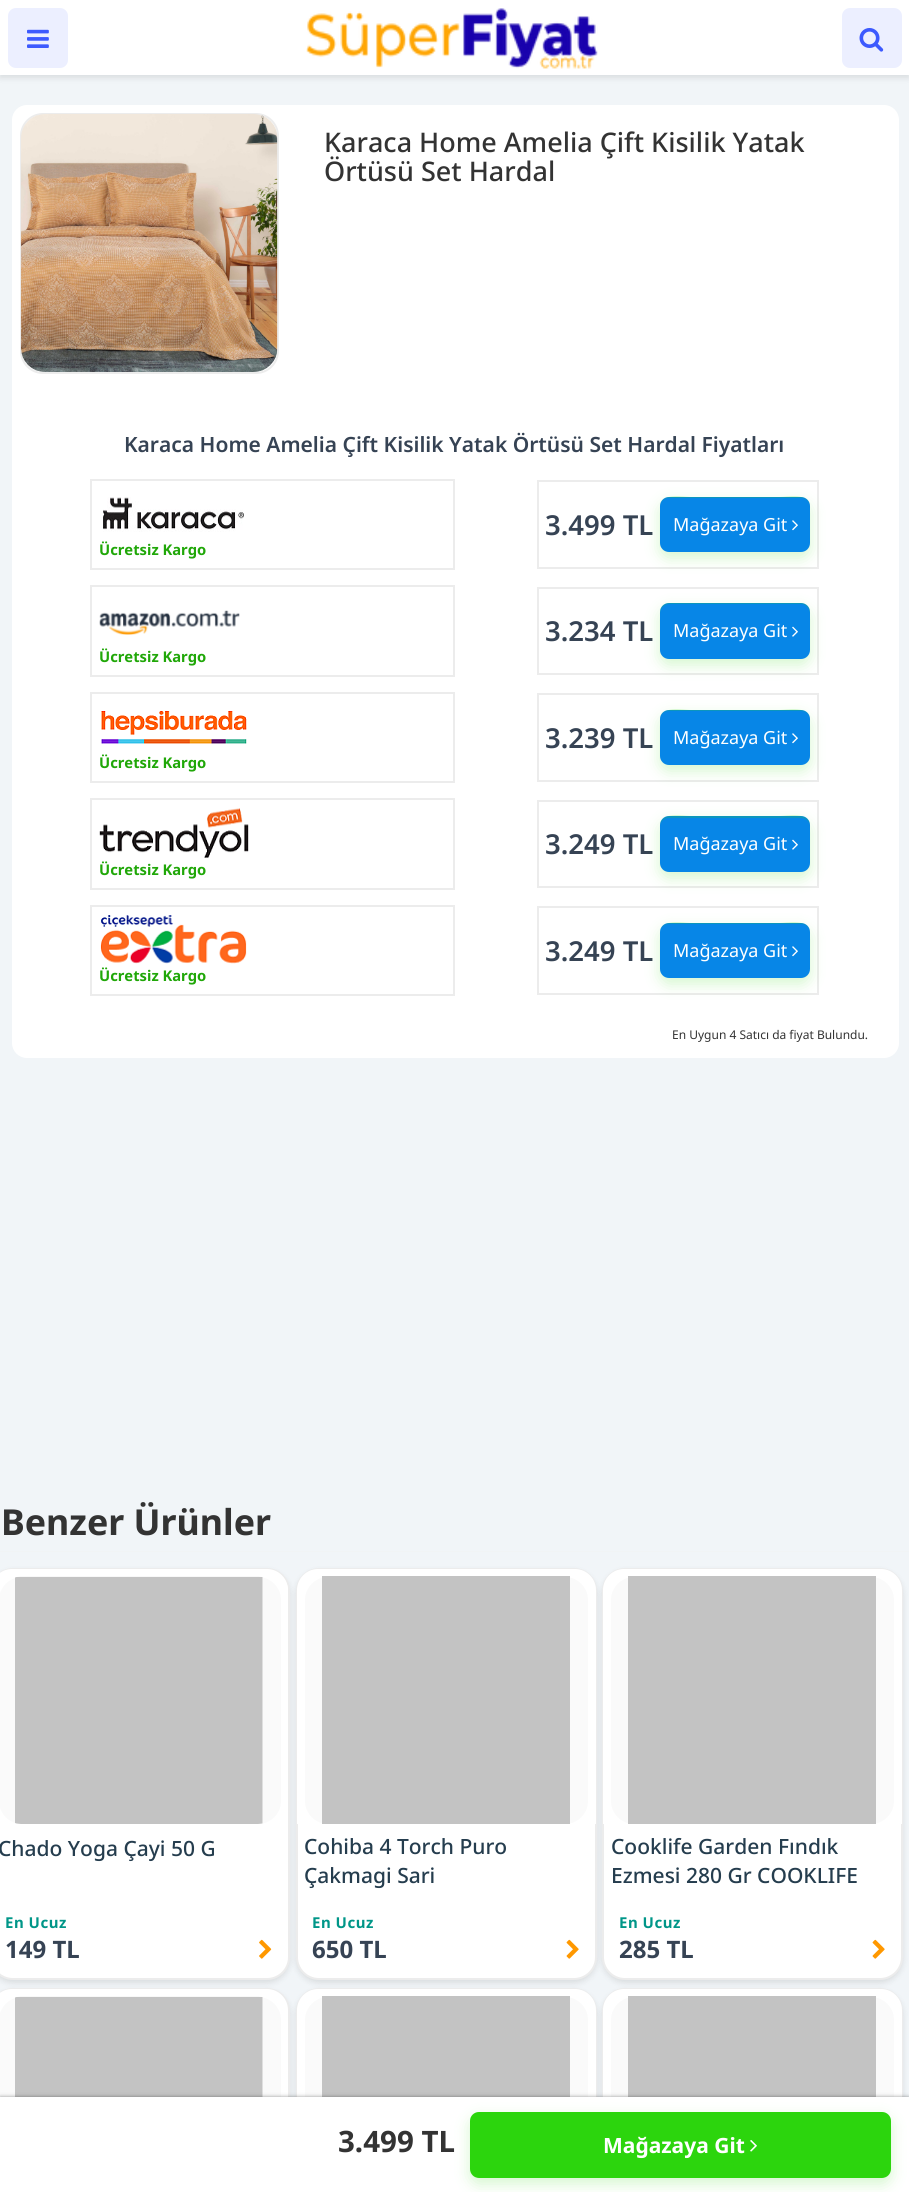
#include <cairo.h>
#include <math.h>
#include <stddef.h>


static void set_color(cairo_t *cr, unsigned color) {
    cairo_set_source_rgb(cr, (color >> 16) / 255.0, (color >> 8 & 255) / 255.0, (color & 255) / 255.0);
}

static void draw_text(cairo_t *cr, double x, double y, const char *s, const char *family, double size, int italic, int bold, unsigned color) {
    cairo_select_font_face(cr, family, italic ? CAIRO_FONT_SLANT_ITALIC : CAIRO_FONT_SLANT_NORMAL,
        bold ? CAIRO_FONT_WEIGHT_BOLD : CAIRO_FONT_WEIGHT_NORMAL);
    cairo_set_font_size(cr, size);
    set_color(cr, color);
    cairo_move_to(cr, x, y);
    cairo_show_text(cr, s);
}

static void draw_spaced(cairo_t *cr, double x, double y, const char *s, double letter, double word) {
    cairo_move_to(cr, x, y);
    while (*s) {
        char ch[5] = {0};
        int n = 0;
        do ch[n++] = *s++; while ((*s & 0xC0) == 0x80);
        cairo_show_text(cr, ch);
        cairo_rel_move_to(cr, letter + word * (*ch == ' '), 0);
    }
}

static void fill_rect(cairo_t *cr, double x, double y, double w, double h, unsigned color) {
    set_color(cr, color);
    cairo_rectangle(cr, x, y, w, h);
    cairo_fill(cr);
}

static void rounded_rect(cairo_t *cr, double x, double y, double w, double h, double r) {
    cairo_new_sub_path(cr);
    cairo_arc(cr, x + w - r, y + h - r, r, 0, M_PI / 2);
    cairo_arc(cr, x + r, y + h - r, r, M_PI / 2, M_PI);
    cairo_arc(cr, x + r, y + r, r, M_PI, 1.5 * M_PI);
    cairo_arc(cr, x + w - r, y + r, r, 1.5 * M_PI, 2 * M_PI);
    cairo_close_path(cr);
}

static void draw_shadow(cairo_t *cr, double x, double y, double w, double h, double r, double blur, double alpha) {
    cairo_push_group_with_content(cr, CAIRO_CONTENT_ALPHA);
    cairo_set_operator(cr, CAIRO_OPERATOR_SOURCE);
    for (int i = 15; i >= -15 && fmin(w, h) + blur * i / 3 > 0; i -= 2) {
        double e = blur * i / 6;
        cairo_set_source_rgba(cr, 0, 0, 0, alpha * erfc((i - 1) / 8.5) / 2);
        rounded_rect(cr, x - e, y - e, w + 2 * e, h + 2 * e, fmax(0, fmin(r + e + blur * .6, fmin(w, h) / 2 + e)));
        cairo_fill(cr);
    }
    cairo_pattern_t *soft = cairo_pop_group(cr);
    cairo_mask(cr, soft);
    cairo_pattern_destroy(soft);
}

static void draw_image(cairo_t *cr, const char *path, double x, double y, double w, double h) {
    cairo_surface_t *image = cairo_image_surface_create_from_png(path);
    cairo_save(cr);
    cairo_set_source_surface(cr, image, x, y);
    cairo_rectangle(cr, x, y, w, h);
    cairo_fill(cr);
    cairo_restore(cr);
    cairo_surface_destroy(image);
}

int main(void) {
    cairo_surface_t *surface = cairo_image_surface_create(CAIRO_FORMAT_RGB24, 909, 2192);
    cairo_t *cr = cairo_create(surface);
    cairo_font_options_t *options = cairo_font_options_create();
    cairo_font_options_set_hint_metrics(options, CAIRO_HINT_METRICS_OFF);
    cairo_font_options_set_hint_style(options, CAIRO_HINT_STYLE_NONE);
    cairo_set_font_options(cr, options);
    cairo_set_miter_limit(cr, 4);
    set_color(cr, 0xF1F5F8);
    cairo_paint(cr);
    set_color(cr, 0x000000);
    draw_shadow(cr, 0, 3, 909, 75, 0, 3, 0.1);
    fill_rect(cr, 0, 0, 909, 75, 0xFFFFFF);
    set_color(cr, 0xECEFFF);
    rounded_rect(cr, 8, 8, 60, 60, 8);
    cairo_fill(cr);
    draw_image(cr, "assets/img1.png", 27, 29, 22, 19);
    draw_image(cr, "assets/img2.png", 306, 8, 292, 61);
    rounded_rect(cr, 842, 8, 60, 60, 8);
    cairo_fill(cr);
    draw_image(cr, "assets/img3.png", 859, 28, 25, 24);
    set_color(cr, 0xFFFFFF);
    rounded_rect(cr, 12, 105, 887, 953, 15);
    cairo_fill(cr);
    rounded_rect(cr, 21, 114, 257, 259, 22);
    set_color(cr, 0xECECEC);
    cairo_stroke(cr);
    draw_image(cr, "assets/img4.png", 21, 114, 257, 258);
    draw_text(cr, 324, 152, "Karaca Home Amelia Çift Kisilik Yatak", "Noto Sans Medium", 27, 0, 0, 0x333333);
    draw_text(cr, 324, 181, "Örtüsü Set Hardal", "Noto Sans Medium", 27, 0, 0, 0x333333);
    draw_text(cr, 124, 452, "Karaca Home Amelia Çift Kisilik Yatak Örtüsü Set Hardal Fiyatları", "Noto Sans SemiBold", 21, 0, 0, 0x364354);
    cairo_rectangle(cr, 538, 481, 280, 87);
    set_color(cr, 0xECECEC);
    cairo_stroke(cr);
    draw_text(cr, 545, 535, "3.499 TL", "Noto Sans SemiBold", 27.5, 0, 0, 0x364354);
    set_color(cr, 0x22D800);
    draw_shadow(cr, 660, 503, 150, 55, 9, 7.5, 0.19);
    set_color(cr, 0x0786E7);
    rounded_rect(cr, 660, 497, 150, 55, 9);
    cairo_fill(cr);
    cairo_set_source_rgba(cr, 0.133, 0.847, 0, 0.19);
    cairo_new_path(cr);
    cairo_move_to(cr, 669, 498);
    cairo_line_to(cr, 801, 498);
    cairo_curve_to(cr, 806, 498, 810, 502, 810, 507);
    cairo_curve_to(cr, 810, 492, 787, 497, 779, 497);
    cairo_line_to(cr, 691, 497);
    cairo_curve_to(cr, 683, 497, 660, 492, 660, 507);
    cairo_curve_to(cr, 660, 502, 664, 498, 669, 498);
    cairo_close_path(cr);
    cairo_fill(cr);
    draw_text(cr, 673, 531, "Mağazaya Git", "Noto Sans", 18, 0, 0, 0xFFFFFF);
    draw_image(cr, "assets/img5.png", 792, 520, 6, 11);
    cairo_rectangle(cr, 91, 480, 363, 89);
    set_color(cr, 0xECECEC);
    cairo_stroke(cr);
    draw_image(cr, "assets/img6.png", 103, 497, 141, 35);
    draw_text(cr, 99, 555, "Ücretsiz Kargo", "Noto Sans", 14.75, 0, 1, 0x20A708);
    cairo_rectangle(cr, 538, 588, 280, 86);
    set_color(cr, 0xECECEC);
    cairo_stroke(cr);
    draw_text(cr, 545, 641, "3.234 TL", "Noto Sans SemiBold", 27.5, 0, 0, 0x364354);
    set_color(cr, 0x22D800);
    draw_shadow(cr, 660, 609, 150, 56, 9, 7.5, 0.19);
    set_color(cr, 0x0786E7);
    rounded_rect(cr, 660, 603, 150, 56, 9);
    cairo_fill(cr);
    cairo_set_source_rgba(cr, 0.133, 0.847, 0, 0.19);
    cairo_new_path(cr);
    cairo_move_to(cr, 669, 604);
    cairo_line_to(cr, 801, 604);
    cairo_curve_to(cr, 806, 604, 810, 609, 810, 614);
    cairo_line_to(cr, 810, 612);
    cairo_curve_to(cr, 810, 607, 806, 603, 801, 603);
    cairo_line_to(cr, 669, 603);
    cairo_curve_to(cr, 664, 603, 660, 607, 660, 612);
    cairo_line_to(cr, 660, 614);
    cairo_curve_to(cr, 660, 609, 664, 604, 669, 604);
    cairo_close_path(cr);
    cairo_fill(cr);
    draw_text(cr, 673, 637, "Mağazaya Git", "Noto Sans", 18, 0, 0, 0xFFFFFF);
    draw_image(cr, "assets/img7.png", 792, 626, 6, 11);
    cairo_rectangle(cr, 91, 586, 363, 90);
    set_color(cr, 0xECECEC);
    cairo_stroke(cr);
    draw_image(cr, "assets/img8.png", 99, 610, 141, 25);
    draw_text(cr, 99, 662, "Ücretsiz Kargo", "Noto Sans", 14.75, 0, 1, 0x20A708);
    cairo_rectangle(cr, 538, 694, 280, 87);
    set_color(cr, 0xECECEC);
    cairo_stroke(cr);
    draw_text(cr, 545, 748, "3.239 TL", "Noto Sans SemiBold", 27.5, 0, 0, 0x364354);
    set_color(cr, 0x22D800);
    draw_shadow(cr, 660, 716, 150, 55, 9, 7.5, 0.19);
    set_color(cr, 0x0786E7);
    rounded_rect(cr, 660, 710, 150, 55, 9);
    cairo_fill(cr);
    cairo_set_source_rgba(cr, 0.133, 0.847, 0, 0.19);
    cairo_new_path(cr);
    cairo_move_to(cr, 669, 711);
    cairo_line_to(cr, 801, 711);
    cairo_curve_to(cr, 806, 711, 810, 715, 810, 720);
    cairo_curve_to(cr, 810, 705, 787, 710, 779, 710);
    cairo_line_to(cr, 691, 710);
    cairo_curve_to(cr, 683, 710, 660, 705, 660, 720);
    cairo_curve_to(cr, 660, 715, 664, 711, 669, 711);
    cairo_close_path(cr);
    cairo_fill(cr);
    draw_text(cr, 673, 744, "Mağazaya Git", "Noto Sans", 18, 0, 0, 0xFFFFFF);
    draw_image(cr, "assets/img5.png", 792, 733, 6, 11);
    cairo_rectangle(cr, 91, 693, 363, 89);
    set_color(cr, 0xECECEC);
    cairo_stroke(cr);
    draw_image(cr, "assets/img9.png", 101, 711, 146, 33);
    draw_text(cr, 99, 768, "Ücretsiz Kargo", "Noto Sans", 14.75, 0, 1, 0x20A708);
    cairo_rectangle(cr, 538, 801, 280, 86);
    set_color(cr, 0xECECEC);
    cairo_stroke(cr);
    draw_text(cr, 545, 854, "3.249 TL", "Noto Sans SemiBold", 27.5, 0, 0, 0x364354);
    set_color(cr, 0x22D800);
    draw_shadow(cr, 660, 822, 150, 56, 9, 7.5, 0.19);
    set_color(cr, 0x0786E7);
    rounded_rect(cr, 660, 816, 150, 56, 9);
    cairo_fill(cr);
    cairo_set_source_rgba(cr, 0.133, 0.847, 0, 0.19);
    cairo_new_path(cr);
    cairo_move_to(cr, 669, 818);
    cairo_line_to(cr, 801, 818);
    cairo_curve_to(cr, 806, 818, 810, 822, 810, 826);
    cairo_curve_to(cr, 810, 811, 787, 816, 779, 816);
    cairo_line_to(cr, 691, 816);
    cairo_curve_to(cr, 683, 816, 660, 811, 660, 826);
    cairo_curve_to(cr, 660, 822, 664, 818, 669, 818);
    cairo_close_path(cr);
    cairo_fill(cr);
    draw_text(cr, 673, 850, "Mağazaya Git", "Noto Sans", 18, 0, 0, 0xFFFFFF);
    draw_image(cr, "assets/img7.png", 792, 839, 6, 11);
    cairo_rectangle(cr, 91, 799, 363, 90);
    set_color(cr, 0xECECEC);
    cairo_stroke(cr);
    draw_image(cr, "assets/img10.png", 99, 808, 150, 50);
    draw_text(cr, 99, 875, "Ücretsiz Kargo", "Noto Sans", 14.75, 0, 1, 0x20A708);
    cairo_rectangle(cr, 538, 907, 280, 87);
    set_color(cr, 0xECECEC);
    cairo_stroke(cr);
    draw_text(cr, 545, 961, "3.249 TL", "Noto Sans SemiBold", 27.5, 0, 0, 0x364354);
    set_color(cr, 0x22D800);
    draw_shadow(cr, 660, 929, 150, 55, 9, 7.5, 0.19);
    set_color(cr, 0x0786E7);
    rounded_rect(cr, 660, 923, 150, 55, 9);
    cairo_fill(cr);
    cairo_set_source_rgba(cr, 0.133, 0.847, 0, 0.19);
    cairo_new_path(cr);
    cairo_move_to(cr, 669, 924);
    cairo_line_to(cr, 801, 924);
    cairo_curve_to(cr, 806, 924, 810, 928, 810, 933);
    cairo_curve_to(cr, 810, 918, 787, 923, 779, 923);
    cairo_line_to(cr, 691, 923);
    cairo_curve_to(cr, 683, 923, 660, 918, 660, 933);
    cairo_curve_to(cr, 660, 928, 664, 924, 669, 924);
    cairo_close_path(cr);
    cairo_fill(cr);
    draw_text(cr, 673, 957, "Mağazaya Git", "Noto Sans", 18, 0, 0, 0xFFFFFF);
    draw_image(cr, "assets/img5.png", 792, 946, 6, 11);
    cairo_rectangle(cr, 91, 906, 363, 89);
    set_color(cr, 0xECECEC);
    cairo_stroke(cr);
    draw_image(cr, "assets/img11.png", 100, 915, 147, 49);
    draw_text(cr, 99, 981, "Ücretsiz Kargo", "Noto Sans", 14.75, 0, 1, 0x20A708);
    draw_text(cr, 672, 1039, "En Uygun 4 Satıcı da fiyat Bulundu.", "Noto Sans", 12, 0, 0, 0x333333);
    set_color(cr, 0x000000);
    draw_shadow(cr, -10, 1571, 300, 412, 23, 3, 0.1);
    set_color(cr, 0xFFFFFF);
    rounded_rect(cr, -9, 1569, 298, 410, 22);
    cairo_fill_preserve(cr);
    set_color(cr, 0xECECEC);
    cairo_stroke(cr);
    set_color(cr, 0xFFFFFF);
    cairo_new_path(cr);
    cairo_move_to(cr, 12, 1569);
    cairo_line_to(cr, 267, 1569);
    cairo_curve_to(cr, 278.5, 1569, 288, 1578.5, 288, 1590);
    cairo_line_to(cr, 288, 1824);
    cairo_line_to(cr, -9, 1824);
    cairo_line_to(cr, -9, 1590);
    cairo_curve_to(cr, -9, 1578.5, 0.5, 1569, 12, 1569);
    cairo_close_path(cr);
    cairo_fill(cr);
    set_color(cr, 0x000000);
    draw_shadow(cr, 296, 1571, 301, 412, 23, 3, 0.1);
    draw_shadow(cr, -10, 1991, 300, 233, 23, 3, 0.1);
    rounded_rect(cr, -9, 1989, 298, 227, 22);
    set_color(cr, 0xECECEC);
    cairo_stroke(cr);
    set_color(cr, 0xFFFFFF);
    cairo_new_path(cr);
    cairo_move_to(cr, 12, 1989);
    cairo_line_to(cr, 267, 1989);
    cairo_curve_to(cr, 278.5, 1989, 288, 1998.5, 288, 2010);
    cairo_line_to(cr, 288, 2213);
    cairo_line_to(cr, -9, 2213);
    cairo_line_to(cr, -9, 2010);
    cairo_curve_to(cr, -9, 1998.5, 0.5, 1989, 12, 1989);
    cairo_close_path(cr);
    cairo_fill(cr);
    set_color(cr, 0xFAFAFA);
    rounded_rect(cr, -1, 1997, 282, 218, 23);
    cairo_fill(cr);
    draw_image(cr, "assets/img16.png", 15, 1996, 248, 101);
    set_color(cr, 0xFFFFFF);
    rounded_rect(cr, 297, 1569, 299, 410, 22);
    cairo_fill_preserve(cr);
    set_color(cr, 0xECECEC);
    cairo_stroke(cr);
    set_color(cr, 0xFFFFFF);
    cairo_new_path(cr);
    cairo_move_to(cr, 318, 1569);
    cairo_line_to(cr, 575, 1569);
    cairo_curve_to(cr, 586.5, 1569, 596, 1578.5, 596, 1590);
    cairo_line_to(cr, 596, 1824);
    cairo_line_to(cr, 297, 1824);
    cairo_line_to(cr, 297, 1590);
    cairo_curve_to(cr, 297, 1578.5, 306.5, 1569, 318, 1569);
    cairo_close_path(cr);
    cairo_fill(cr);
    set_color(cr, 0x000000);
    draw_shadow(cr, 602, 1571, 301, 412, 23, 3, 0.1);
    draw_shadow(cr, 296, 1991, 301, 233, 23, 3, 0.1);
    rounded_rect(cr, 297, 1989, 299, 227, 22);
    set_color(cr, 0xECECEC);
    cairo_stroke(cr);
    set_color(cr, 0xFFFFFF);
    cairo_new_path(cr);
    cairo_move_to(cr, 318, 1989);
    cairo_line_to(cr, 575, 1989);
    cairo_curve_to(cr, 586.5, 1989, 596, 1998.5, 596, 2010);
    cairo_line_to(cr, 596, 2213);
    cairo_line_to(cr, 297, 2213);
    cairo_line_to(cr, 297, 2010);
    cairo_curve_to(cr, 297, 1998.5, 306.5, 1989, 318, 1989);
    cairo_close_path(cr);
    cairo_fill(cr);
    set_color(cr, 0xFAFAFA);
    rounded_rect(cr, 305, 1997, 283, 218, 23);
    cairo_fill(cr);
    fill_rect(cr, 322, 1996, 248, 101, 0xC3C3C3);
    set_color(cr, 0x000000);
    draw_shadow(cr, 602, 1991, 301, 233, 23, 3, 0.1);
    rounded_rect(cr, 603, 1989, 299, 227, 22);
    set_color(cr, 0xECECEC);
    cairo_stroke(cr);
    set_color(cr, 0xFFFFFF);
    cairo_new_path(cr);
    cairo_move_to(cr, 624, 1989);
    cairo_line_to(cr, 881, 1989);
    cairo_curve_to(cr, 892.5, 1989, 902, 1998.5, 902, 2010);
    cairo_line_to(cr, 902, 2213);
    cairo_line_to(cr, 603, 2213);
    cairo_line_to(cr, 603, 2010);
    cairo_curve_to(cr, 603, 1998.5, 612.5, 1989, 624, 1989);
    cairo_close_path(cr);
    cairo_fill(cr);
    set_color(cr, 0xFAFAFA);
    rounded_rect(cr, 611, 1997, 283, 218, 23);
    cairo_fill(cr);
    fill_rect(cr, 628, 1996, 248, 101, 0xC3C3C3);
    set_color(cr, 0x000000);
    draw_shadow(cr, 0, 2097, 909, 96, 0, 2, 0.4);
    fill_rect(cr, 0, 2097, 909, 95, 0xFFFFFF);
    draw_text(cr, 338, 2152, "3.499 TL", "Noto Sans", 29.5, 0, 1, 0x333333);
    cairo_save(cr);
    cairo_set_fill_rule(cr, CAIRO_FILL_RULE_EVEN_ODD);
    cairo_new_path(cr);
    cairo_move_to(cr, 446, 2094);
    cairo_line_to(cr, 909, 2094);
    cairo_line_to(cr, 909, 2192);
    cairo_line_to(cr, 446, 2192);
    cairo_close_path(cr);
    cairo_move_to(cr, 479, 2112);
    cairo_line_to(cr, 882, 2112);
    cairo_curve_to(cr, 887, 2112, 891, 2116, 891, 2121);
    cairo_line_to(cr, 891, 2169);
    cairo_curve_to(cr, 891, 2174, 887, 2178, 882, 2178);
    cairo_line_to(cr, 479, 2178);
    cairo_curve_to(cr, 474, 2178, 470, 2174, 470, 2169);
    cairo_line_to(cr, 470, 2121);
    cairo_curve_to(cr, 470, 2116, 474, 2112, 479, 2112);
    cairo_close_path(cr);
    cairo_clip(cr);
    set_color(cr, 0x22D800);
    draw_shadow(cr, 470, 2118, 421, 66, 9, 7.5, 0.19);
    cairo_restore(cr);
    cairo_set_source_rgba(cr, 0.169, 0.835, 0.047, 0.99);
    rounded_rect(cr, 470, 2112, 421, 66, 9);
    cairo_fill(cr);
    cairo_set_source_rgba(cr, 0.133, 0.847, 0, 0.19);
    cairo_new_path(cr);
    cairo_move_to(cr, 478, 2114);
    cairo_line_to(cr, 882, 2114);
    cairo_curve_to(cr, 887, 2114, 891, 2118, 891, 2122);
    cairo_line_to(cr, 891, 2121);
    cairo_curve_to(cr, 891, 2116, 887, 2112, 882, 2112);
    cairo_line_to(cr, 479, 2112);
    cairo_curve_to(cr, 474, 2112, 470, 2116, 470, 2121);
    cairo_line_to(cr, 470, 2122);
    cairo_curve_to(cr, 470, 2118, 474, 2114, 478, 2114);
    cairo_close_path(cr);
    cairo_fill(cr);
    draw_text(cr, 603, 2153, "Mağazaya Git", "Noto Sans", 21, 0, 1, 0xFFFFFF);
    draw_image(cr, "assets/img12.png", 750, 2140, 7, 12);
    set_color(cr, 0xF1F4F5);
    cairo_new_path(cr);
    cairo_move_to(cr, 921, 1552);
    cairo_line_to(cr, -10, 1552);
    cairo_line_to(cr, -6, 1551);
    cairo_line_to(cr, 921, 1551);
    cairo_close_path(cr);
    cairo_fill(cr);
    draw_text(cr, 1, 1535, "Benzer Ürünler", "Noto Sans", 35.75, 0, 1, 0x333333);
    set_color(cr, 0xFAFAFA);
    rounded_rect(cr, -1, 1577, 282, 247, 23);
    cairo_fill(cr);
    draw_image(cr, "assets/img13.png", 15, 1576, 248, 248);
    draw_text(cr, -2, 1856, "Chado Yoga Çayi 50 G", "Noto Sans Medium", 21, 0, 0, 0x253D4E);
    cairo_select_font_face(cr, "Noto Sans", CAIRO_FONT_SLANT_NORMAL, CAIRO_FONT_WEIGHT_BOLD);
    cairo_set_font_size(cr, 15);
    set_color(cr, 0x009688);
    draw_spaced(cr, 5, 1928, "En Ucuz", 0.5, 0);
    draw_text(cr, 5, 1958, "149 TL", "Noto Sans", 24, 0, 1, 0x364354);
    draw_image(cr, "assets/img14.png", 259, 1939, 13, 20);
    set_color(cr, 0xFAFAFA);
    rounded_rect(cr, 305, 1577, 283, 247, 23);
    cairo_fill(cr);
    fill_rect(cr, 322, 1576, 248, 248, 0xC3C3C3);
    draw_text(cr, 304, 1854, "Cohiba 4 Torch Puro", "Noto Sans Medium", 21, 0, 0, 0x253D4E);
    draw_text(cr, 304, 1883, "Çakmagi Sari", "Noto Sans Medium", 21, 0, 0, 0x253D4E);
    cairo_select_font_face(cr, "Noto Sans", CAIRO_FONT_SLANT_NORMAL, CAIRO_FONT_WEIGHT_BOLD);
    cairo_set_font_size(cr, 15);
    set_color(cr, 0x009688);
    draw_spaced(cr, 312, 1928, "En Ucuz", 0.5, 0);
    draw_text(cr, 312, 1958, "650 TL", "Noto Sans", 24, 0, 1, 0x364354);
    draw_image(cr, "assets/img15.png", 566, 1939, 13, 20);
    set_color(cr, 0xFFFFFF);
    rounded_rect(cr, 603, 1569, 299, 410, 22);
    cairo_fill_preserve(cr);
    set_color(cr, 0xECECEC);
    cairo_stroke(cr);
    set_color(cr, 0xFFFFFF);
    cairo_new_path(cr);
    cairo_move_to(cr, 624, 1569);
    cairo_line_to(cr, 881, 1569);
    cairo_curve_to(cr, 892.5, 1569, 902, 1578.5, 902, 1590);
    cairo_line_to(cr, 902, 1824);
    cairo_line_to(cr, 603, 1824);
    cairo_line_to(cr, 603, 1590);
    cairo_curve_to(cr, 603, 1578.5, 612.5, 1569, 624, 1569);
    cairo_close_path(cr);
    cairo_fill(cr);
    set_color(cr, 0xFAFAFA);
    rounded_rect(cr, 611, 1577, 283, 247, 23);
    cairo_fill(cr);
    fill_rect(cr, 628, 1576, 248, 248, 0xC3C3C3);
    draw_text(cr, 611, 1854, "Cooklife Garden Fındık", "Noto Sans Medium", 21, 0, 0, 0x253D4E);
    draw_text(cr, 611, 1883, "Ezmesi 280 Gr COOKLIFE", "Noto Sans Medium", 21, 0, 0, 0x253D4E);
    cairo_select_font_face(cr, "Noto Sans", CAIRO_FONT_SLANT_NORMAL, CAIRO_FONT_WEIGHT_BOLD);
    cairo_set_font_size(cr, 15);
    set_color(cr, 0x009688);
    draw_spaced(cr, 619, 1928, "En Ucuz", 0.5, 0);
    draw_text(cr, 619, 1958, "285 TL", "Noto Sans", 24, 0, 1, 0x364354);
    draw_image(cr, "assets/img15.png", 872, 1939, 13, 20);
    cairo_surface_write_to_png(surface, "output.png");
    cairo_font_options_destroy(options);
    cairo_destroy(cr);
    cairo_surface_destroy(surface);
    return 0;
}
